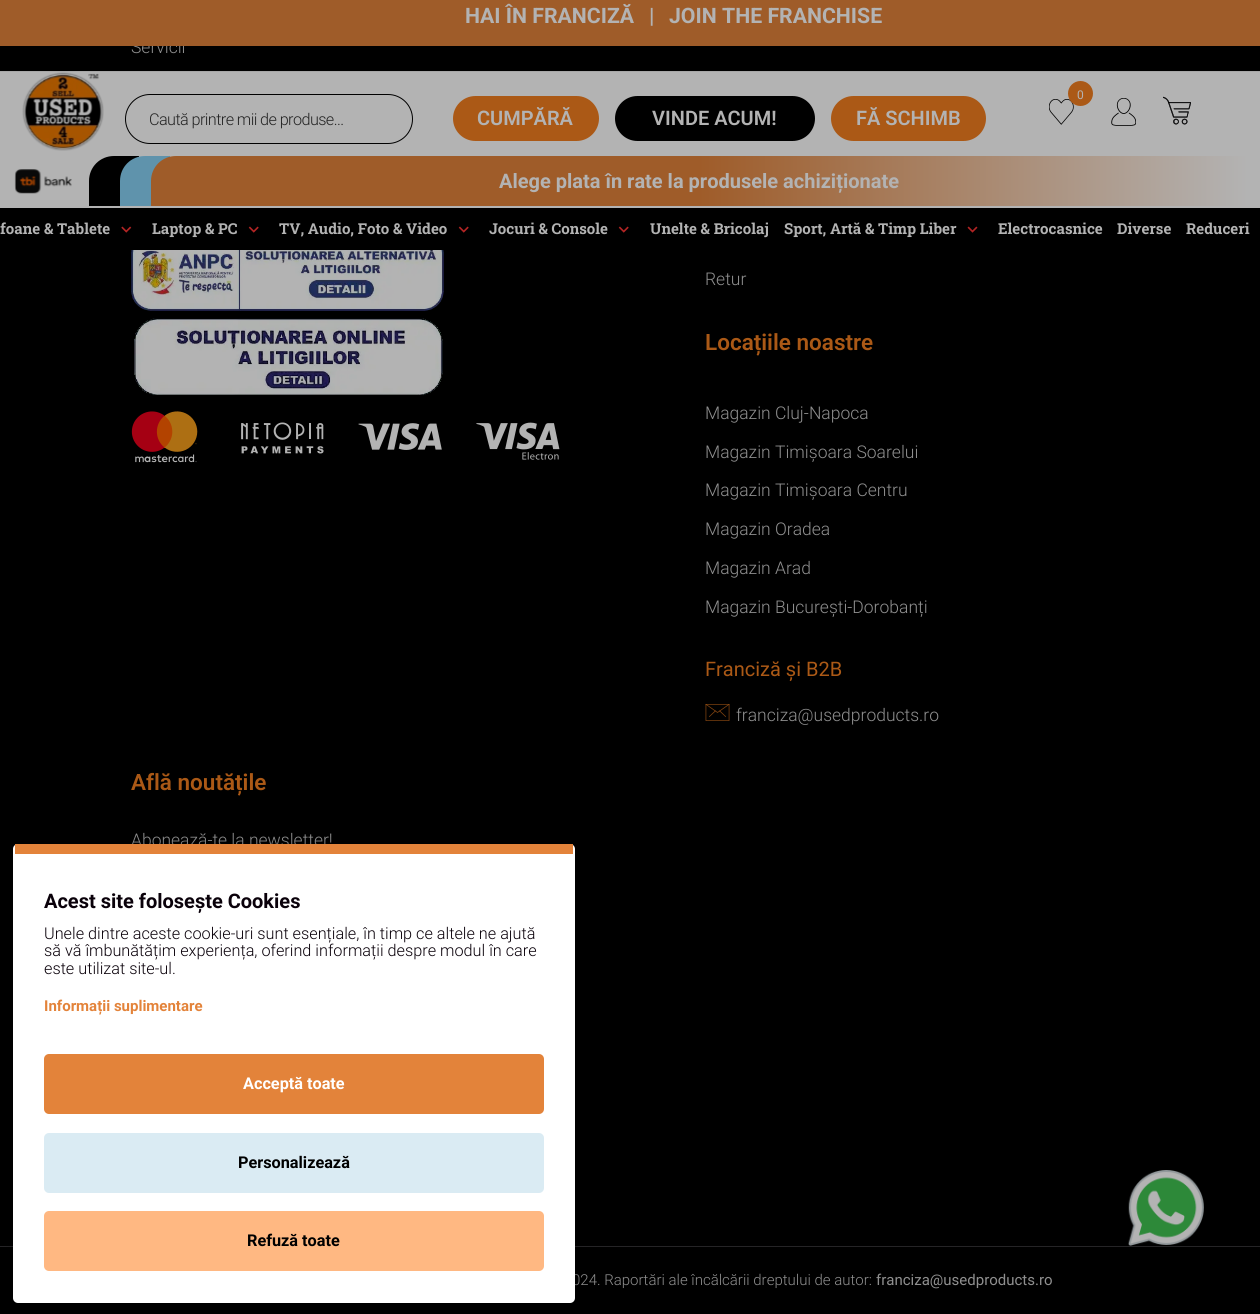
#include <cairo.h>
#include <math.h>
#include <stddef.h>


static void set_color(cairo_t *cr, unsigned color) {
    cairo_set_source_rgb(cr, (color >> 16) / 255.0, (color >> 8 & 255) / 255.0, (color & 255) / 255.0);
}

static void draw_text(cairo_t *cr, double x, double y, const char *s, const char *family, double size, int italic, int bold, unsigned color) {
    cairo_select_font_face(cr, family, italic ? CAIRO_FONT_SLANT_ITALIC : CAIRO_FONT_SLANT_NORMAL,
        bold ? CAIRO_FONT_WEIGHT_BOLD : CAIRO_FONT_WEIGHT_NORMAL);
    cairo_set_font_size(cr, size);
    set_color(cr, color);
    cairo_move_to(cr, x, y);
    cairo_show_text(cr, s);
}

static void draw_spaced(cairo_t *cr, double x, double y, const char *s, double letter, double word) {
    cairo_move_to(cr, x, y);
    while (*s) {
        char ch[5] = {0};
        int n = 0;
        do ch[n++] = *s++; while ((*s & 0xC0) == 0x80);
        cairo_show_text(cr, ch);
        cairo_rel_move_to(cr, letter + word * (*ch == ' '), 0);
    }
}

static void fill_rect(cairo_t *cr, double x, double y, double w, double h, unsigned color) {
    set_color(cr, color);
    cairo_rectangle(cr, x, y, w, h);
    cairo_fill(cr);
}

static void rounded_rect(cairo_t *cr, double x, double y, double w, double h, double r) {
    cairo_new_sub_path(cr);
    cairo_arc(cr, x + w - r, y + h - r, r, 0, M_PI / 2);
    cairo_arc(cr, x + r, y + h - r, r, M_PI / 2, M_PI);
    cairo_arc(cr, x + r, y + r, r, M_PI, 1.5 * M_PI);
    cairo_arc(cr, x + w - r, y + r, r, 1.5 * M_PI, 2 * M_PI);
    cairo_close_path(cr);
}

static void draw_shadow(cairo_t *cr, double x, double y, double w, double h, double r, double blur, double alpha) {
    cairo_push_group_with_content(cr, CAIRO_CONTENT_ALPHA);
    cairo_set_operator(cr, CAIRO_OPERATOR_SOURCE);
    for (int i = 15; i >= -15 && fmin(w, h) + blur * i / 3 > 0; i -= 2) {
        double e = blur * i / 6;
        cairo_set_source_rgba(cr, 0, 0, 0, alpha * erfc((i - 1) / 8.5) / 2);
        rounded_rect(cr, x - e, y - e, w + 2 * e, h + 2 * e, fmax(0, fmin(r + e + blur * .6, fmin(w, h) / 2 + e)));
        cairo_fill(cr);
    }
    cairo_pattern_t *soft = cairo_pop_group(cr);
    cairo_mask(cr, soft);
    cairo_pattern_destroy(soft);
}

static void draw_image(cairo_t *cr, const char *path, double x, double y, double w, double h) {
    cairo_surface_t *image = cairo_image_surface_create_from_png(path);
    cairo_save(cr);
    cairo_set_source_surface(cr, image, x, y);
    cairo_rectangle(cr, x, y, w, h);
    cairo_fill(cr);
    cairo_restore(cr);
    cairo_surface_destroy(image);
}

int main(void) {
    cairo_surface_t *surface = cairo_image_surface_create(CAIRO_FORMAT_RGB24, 1260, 1314);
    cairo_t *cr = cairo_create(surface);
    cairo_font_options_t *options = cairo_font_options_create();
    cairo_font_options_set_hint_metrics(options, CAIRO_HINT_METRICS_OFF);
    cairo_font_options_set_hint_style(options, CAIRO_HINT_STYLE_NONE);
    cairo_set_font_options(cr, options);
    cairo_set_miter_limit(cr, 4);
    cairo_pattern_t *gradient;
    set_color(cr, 0x000000);
    cairo_paint(cr);
    draw_text(cr, 131, 53, "Servicii", "Roboto Light", 17.5, 0, 0, 0x8F8F8F);
    fill_rect(cr, 0, 0, 1260, 46, 0x9F5C29);
    draw_text(cr, 465, 23, "HAI ÎN FRANCIZĂ", "Roboto", 21.25, 0, 1, 0xB3B3B3);
    draw_text(cr, 649, 23, "|", "Roboto", 21.25, 0, 1, 0xB3B3B3);
    draw_text(cr, 669, 23, "JOIN THE FRANCHISE", "Roboto", 21.25, 0, 1, 0xB3B3B3);
    fill_rect(cr, 0, 72, 1260, 136, 0xB3B3B3);
    fill_rect(cr, 0, 71, 1260, 1, 0xA7A7A7);
    draw_image(cr, "assets/img1.png", 22, 72, 82, 79);
    draw_image(cr, "assets/img2.png", 1049, 99, 25, 26);
    set_color(cr, 0xAB5916);
    cairo_arc(cr, 1080.5, 93.5, 12.5, 0, 2 * M_PI);
    cairo_fill(cr);
    draw_text(cr, 1077, 99, "0", "Roboto", 12, 0, 0, 0xB3B3B3);
    draw_image(cr, "assets/img3.png", 1111, 98, 25, 28);
    rounded_rect(cr, 125.5, 94.5, 287, 49, 24.5);
    set_color(cr, 0x000000);
    cairo_set_line_width(cr, 1);
    cairo_stroke(cr);
    cairo_select_font_face(cr, "Roboto Light", CAIRO_FONT_SLANT_NORMAL, CAIRO_FONT_WEIGHT_NORMAL);
    cairo_set_font_size(cr, 16.25);
    set_color(cr, 0x242424);
    draw_spaced(cr, 149, 125, "Caută printre mii de produse...", -0.6, 0);
    set_color(cr, 0xAB5916);
    rounded_rect(cr, 453, 96, 146, 45, 22.5);
    cairo_fill(cr);
    draw_text(cr, 477, 125, "CUMPĂRĂ", "Roboto SemiBold", 20, 0, 0, 0xB3B3B3);
    set_color(cr, 0x000000);
    rounded_rect(cr, 615, 96, 200, 45, 22.5);
    cairo_fill(cr);
    draw_text(cr, 652, 125, "VINDE ACUM!", "Roboto SemiBold", 20, 0, 0, 0xB3B3B3);
    set_color(cr, 0xAB5916);
    rounded_rect(cr, 831, 96, 155, 45, 22.5);
    cairo_fill(cr);
    draw_text(cr, 856, 125, "FĂ SCHIMB", "Roboto SemiBold", 20, 0, 0, 0xB3B3B3);
    draw_image(cr, "assets/img4.png", 1163, 96, 28, 29);
    draw_image(cr, "assets/img5.png", 14, 169, 58, 25);
    set_color(cr, 0x000000);
    cairo_new_path(cr);
    cairo_move_to(cr, 114, 156);
    cairo_line_to(cr, 139, 156);
    cairo_line_to(cr, 139, 206);
    cairo_line_to(cr, 89, 206);
    cairo_line_to(cr, 89, 181);
    cairo_curve_to(cr, 89, 167, 100, 156, 114, 156);
    cairo_close_path(cr);
    cairo_fill(cr);
    set_color(cr, 0x5F93AC);
    cairo_new_path(cr);
    cairo_move_to(cr, 145, 156);
    cairo_line_to(cr, 170, 156);
    cairo_line_to(cr, 170, 206);
    cairo_line_to(cr, 120, 206);
    cairo_line_to(cr, 120, 181);
    cairo_curve_to(cr, 120, 167, 131, 156, 145, 156);
    cairo_close_path(cr);
    cairo_fill(cr);
    gradient = cairo_pattern_create_linear(151, 181, 1248, 181);
    cairo_pattern_add_color_stop_rgba(gradient, 0.5, 0.624, 0.361, 0.161, 1);
    cairo_pattern_add_color_stop_rgba(gradient, 1, 0.702, 0.702, 0.702, 1);
    cairo_set_source(cr, gradient);
    cairo_pattern_destroy(gradient);
    cairo_new_path(cr);
    cairo_move_to(cr, 176, 156);
    cairo_line_to(cr, 1248, 156);
    cairo_line_to(cr, 1248, 206);
    cairo_line_to(cr, 151, 206);
    cairo_line_to(cr, 151, 181);
    cairo_curve_to(cr, 151, 167, 162, 156, 176, 156);
    cairo_close_path(cr);
    cairo_fill(cr);
    draw_text(cr, 499, 188, "Alege plata în rate la produsele achiziționate", "Roboto", 20, 0, 1, 0xB3B3B3);
    draw_text(cr, 0, 234, "foane & Tablete", "Roboto Slab", 15, 0, 1, 0xB3B3B3);
    draw_image(cr, "assets/img6.png", 121, 226, 11, 7);
    draw_text(cr, 152, 234, "Laptop & PC", "Roboto Slab", 15, 0, 1, 0xB3B3B3);
    draw_image(cr, "assets/img7.png", 248, 226, 11, 7);
    draw_text(cr, 279, 234, "TV, Audio, Foto & Video", "Roboto Slab", 15, 0, 1, 0xB3B3B3);
    draw_image(cr, "assets/img7.png", 458, 226, 11, 7);
    draw_text(cr, 489, 234, "Jocuri & Console", "Roboto Slab", 15, 0, 1, 0xB3B3B3);
    draw_image(cr, "assets/img7.png", 618, 226, 11, 7);
    draw_text(cr, 650, 234, "Unelte & Bricolaj", "Roboto Slab", 15, 0, 1, 0xB3B3B3);
    draw_text(cr, 784, 234, "Sport, Artă & Timp Liber", "Roboto Slab", 15, 0, 1, 0xB3B3B3);
    draw_image(cr, "assets/img8.png", 967, 226, 11, 7);
    draw_text(cr, 998, 234, "Electrocasnice", "Roboto Slab", 15, 0, 1, 0xB3B3B3);
    draw_text(cr, 1117, 234, "Diverse", "Roboto Slab", 15, 0, 1, 0xB3B3B3);
    draw_text(cr, 1186, 234, "Reduceri", "Roboto Slab", 15, 0, 1, 0xB3B3B3);
    draw_image(cr, "assets/img9.png", 131, 250, 313, 61);
    draw_image(cr, "assets/img10.png", 134, 318, 309, 78);
    draw_image(cr, "assets/img11.png", 131, 411, 429, 52);
    draw_text(cr, 705, 285, "Retur", "Roboto Light", 17.5, 0, 0, 0x8F8F8F);
    draw_text(cr, 705, 350, "Locațiile noastre", "Roboto SemiBold", 22.5, 0, 0, 0xAB5916);
    draw_text(cr, 705, 419, "Magazin Cluj-Napoca", "Roboto Light", 17.5, 0, 0, 0x8F8F8F);
    draw_text(cr, 705, 458, "Magazin Timișoara Soarelui", "Roboto Light", 17.5, 0, 0, 0x8F8F8F);
    draw_text(cr, 705, 496, "Magazin Timișoara Centru", "Roboto Light", 17.5, 0, 0, 0x8F8F8F);
    draw_text(cr, 705, 535, "Magazin Oradea", "Roboto Light", 17.5, 0, 0, 0x8F8F8F);
    draw_text(cr, 705, 574, "Magazin Arad", "Roboto Light", 17.5, 0, 0, 0x8F8F8F);
    draw_text(cr, 705, 613, "Magazin București-Dorobanți", "Roboto Light", 17.5, 0, 0, 0x8F8F8F);
    draw_text(cr, 705, 676, "Franciză și B2B", "Roboto", 20, 0, 0, 0xAB5916);
    draw_image(cr, "assets/img12.png", 705, 704, 25, 17);
    draw_text(cr, 736, 721, "franciza@usedproducts.ro", "Roboto Light", 17.5, 0, 0, 0x8F8F8F);
    draw_text(cr, 131, 790, "Află noutățile", "Roboto SemiBold", 22.5, 0, 0, 0xAB5916);
    draw_text(cr, 131, 846, "Abonează-te la newsletter!", "Roboto Light", 17.5, 0, 0, 0x8F8F8F);
    fill_rect(cr, 0, 1246, 1260, 1, 0x252426);
    draw_text(cr, 572, 1285, "024. Raportări ale încălcării dreptului de autor:", "Roboto Light", 15, 0, 0, 0x8F8F8F);
    draw_text(cr, 876, 1285, "franciza@usedproducts.ro", "Roboto", 15, 0, 0, 0x8F8F8F);
    draw_image(cr, "assets/img13.png", 1128, 1170, 76, 76);
    set_color(cr, 0x000000);
    draw_shadow(cr, 13, 844, 562, 459, 5, 4.5, 0.3);
    set_color(cr, 0xFFFFFF);
    rounded_rect(cr, 13, 844, 562, 459, 5);
    cairo_fill(cr);
    fill_rect(cr, 15, 844, 558, 10, 0xE3833A);
    draw_text(cr, 44, 908, "Acest site folosește Cookies", "Roboto", 20, 0, 1, 0x0A010A);
    draw_text(cr, 44, 939, "Unele dintre aceste cookie-uri sunt esențiale, în timp ce altele ne ajută", "Roboto Light", 16.25, 0, 0, 0x0A010A);
    draw_text(cr, 44, 956, "să vă îmbunătățim experiența, oferind informații despre modul în care", "Roboto Light", 16.25, 0, 0, 0x0A010A);
    draw_text(cr, 44, 974, "este utilizat site-ul.", "Roboto Light", 16.25, 0, 0, 0x0A010A);
    draw_text(cr, 44, 1011, "Informații suplimentare", "Roboto", 15, 0, 1, 0xE3833A);
    rounded_rect(cr, 44, 1054, 500, 60, 5);
    cairo_fill(cr);
    draw_text(cr, 243, 1089, "Acceptă toate", "Roboto", 16.25, 0, 1, 0xFFFFFF);
    set_color(cr, 0xDAEBF3);
    rounded_rect(cr, 44, 1133, 500, 60, 5);
    cairo_fill(cr);
    draw_text(cr, 238, 1168, "Personalizează", "Roboto", 16.25, 0, 1, 0x000000);
    set_color(cr, 0xFFB882);
    rounded_rect(cr, 44, 1211, 500, 60, 5);
    cairo_fill(cr);
    draw_text(cr, 247, 1246, "Refuză toate", "Roboto", 16.25, 0, 1, 0x000000);
    cairo_surface_write_to_png(surface, "output.png");
    cairo_font_options_destroy(options);
    cairo_destroy(cr);
    cairo_surface_destroy(surface);
    return 0;
}
